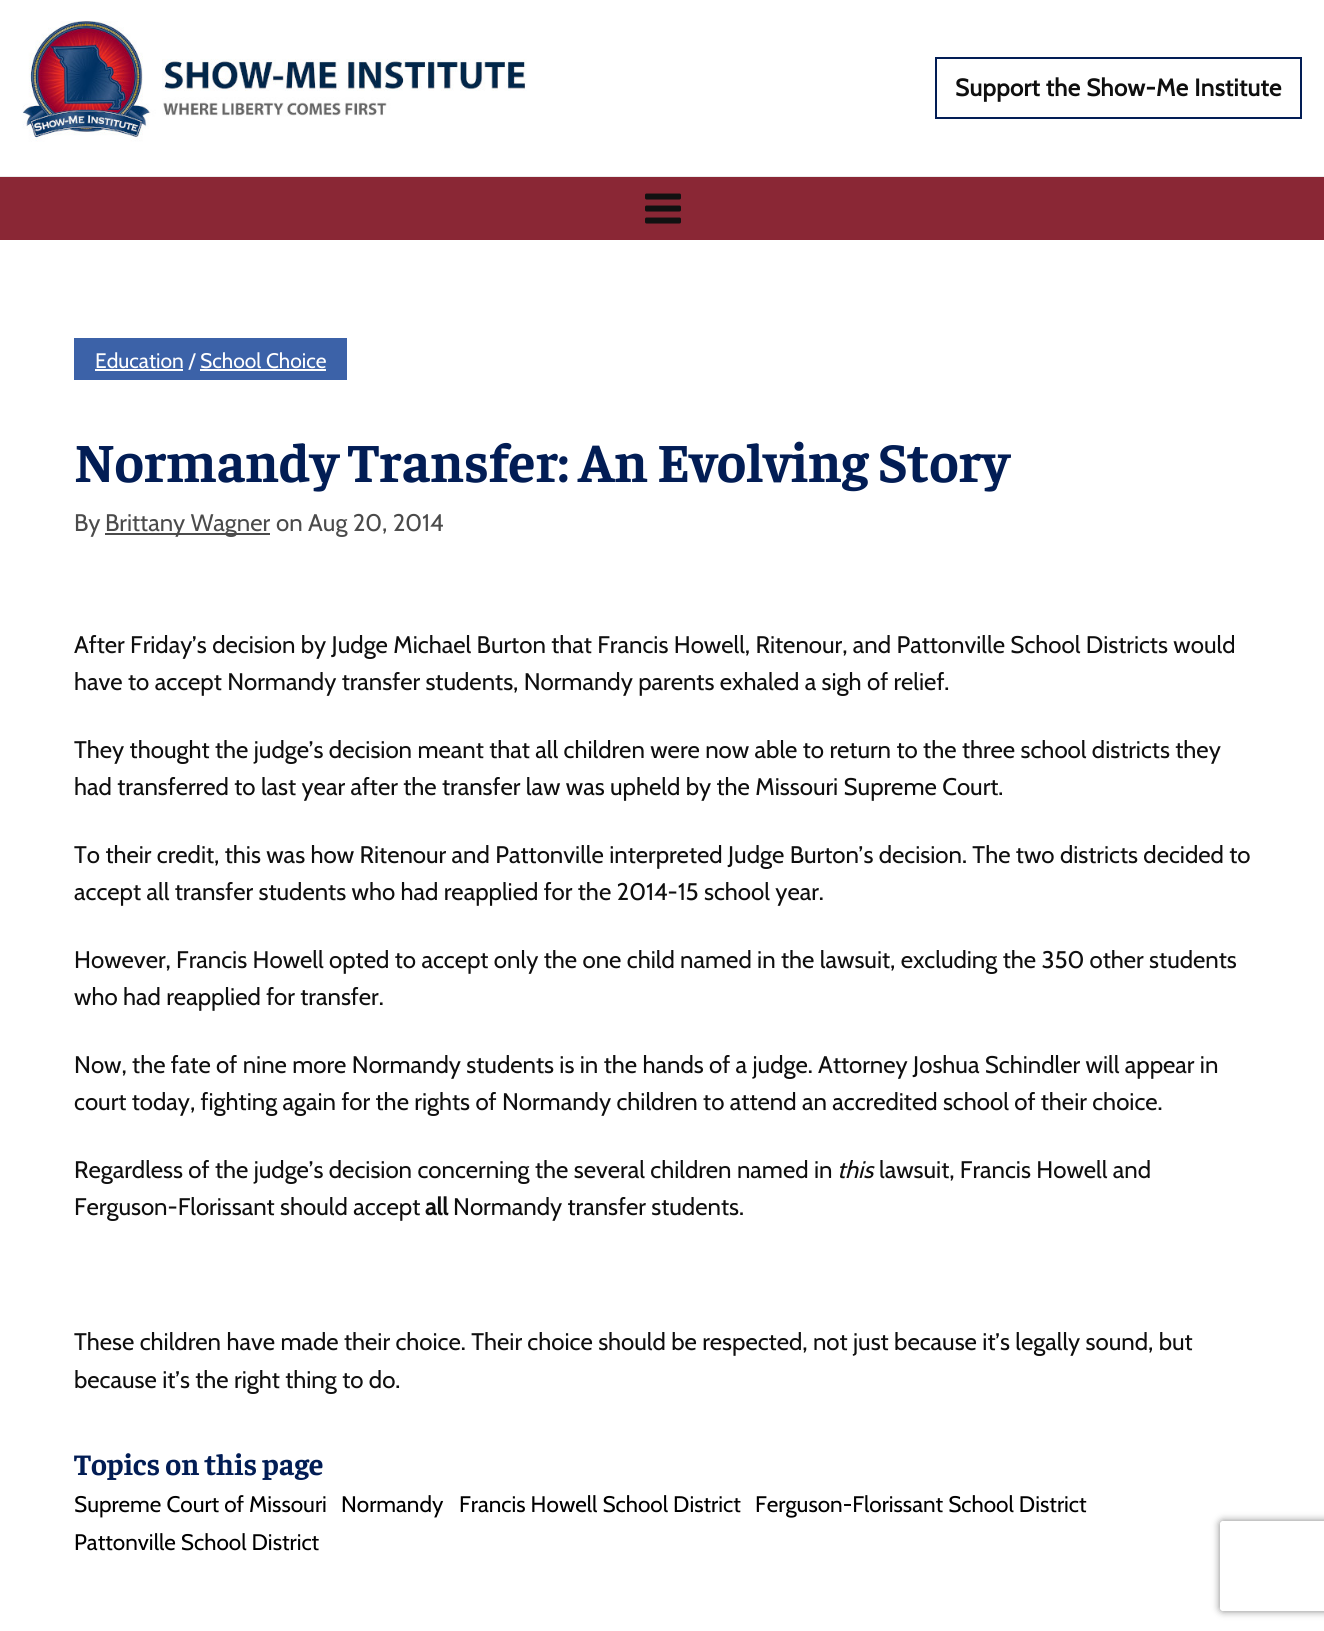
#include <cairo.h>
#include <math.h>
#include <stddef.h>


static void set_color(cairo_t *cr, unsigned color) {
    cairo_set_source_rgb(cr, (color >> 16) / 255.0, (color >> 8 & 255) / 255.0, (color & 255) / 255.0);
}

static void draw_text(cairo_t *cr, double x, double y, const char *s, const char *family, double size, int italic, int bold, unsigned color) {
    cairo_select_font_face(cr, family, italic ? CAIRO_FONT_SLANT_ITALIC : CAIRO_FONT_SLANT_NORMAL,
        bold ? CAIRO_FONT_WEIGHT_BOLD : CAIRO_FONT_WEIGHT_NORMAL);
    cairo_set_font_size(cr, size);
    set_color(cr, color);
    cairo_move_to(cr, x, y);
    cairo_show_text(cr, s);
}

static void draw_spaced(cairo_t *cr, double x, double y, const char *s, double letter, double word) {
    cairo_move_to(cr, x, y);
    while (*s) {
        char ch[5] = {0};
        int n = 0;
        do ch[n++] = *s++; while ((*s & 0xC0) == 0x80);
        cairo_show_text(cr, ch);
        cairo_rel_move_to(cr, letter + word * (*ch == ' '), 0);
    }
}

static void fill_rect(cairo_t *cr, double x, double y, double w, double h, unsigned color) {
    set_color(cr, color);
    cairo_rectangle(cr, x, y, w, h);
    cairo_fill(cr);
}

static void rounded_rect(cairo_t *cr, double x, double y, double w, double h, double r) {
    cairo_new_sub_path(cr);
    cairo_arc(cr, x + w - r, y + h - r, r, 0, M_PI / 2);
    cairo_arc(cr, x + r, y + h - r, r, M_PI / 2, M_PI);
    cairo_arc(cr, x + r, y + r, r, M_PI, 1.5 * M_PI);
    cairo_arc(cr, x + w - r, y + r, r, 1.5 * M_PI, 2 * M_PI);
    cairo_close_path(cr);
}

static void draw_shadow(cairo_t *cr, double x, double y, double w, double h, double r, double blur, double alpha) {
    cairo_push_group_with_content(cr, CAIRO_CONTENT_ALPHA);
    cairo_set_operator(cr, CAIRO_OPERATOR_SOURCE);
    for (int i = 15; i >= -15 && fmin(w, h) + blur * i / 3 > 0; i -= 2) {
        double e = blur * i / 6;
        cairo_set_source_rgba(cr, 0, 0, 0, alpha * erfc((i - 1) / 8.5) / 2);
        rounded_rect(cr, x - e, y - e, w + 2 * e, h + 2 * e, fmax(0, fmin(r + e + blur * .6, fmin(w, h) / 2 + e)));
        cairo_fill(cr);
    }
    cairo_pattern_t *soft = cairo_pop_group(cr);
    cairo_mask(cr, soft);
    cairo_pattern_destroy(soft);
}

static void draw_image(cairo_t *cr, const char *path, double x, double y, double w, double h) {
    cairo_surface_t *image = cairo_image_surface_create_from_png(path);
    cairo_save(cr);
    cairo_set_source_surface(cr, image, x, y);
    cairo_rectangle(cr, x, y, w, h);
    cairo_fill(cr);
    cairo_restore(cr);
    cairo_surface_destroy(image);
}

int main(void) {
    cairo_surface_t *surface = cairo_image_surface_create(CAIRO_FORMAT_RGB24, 1324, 1631);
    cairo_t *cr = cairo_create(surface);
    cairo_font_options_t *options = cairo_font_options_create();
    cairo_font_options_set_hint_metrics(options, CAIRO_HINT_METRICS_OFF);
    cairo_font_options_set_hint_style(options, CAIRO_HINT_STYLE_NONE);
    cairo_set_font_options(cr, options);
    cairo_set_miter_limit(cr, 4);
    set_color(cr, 0xFFFFFF);
    cairo_paint(cr);
    draw_image(cr, "assets/img1.png", 22, 21, 505, 121);
    cairo_rectangle(cr, 936, 58, 365, 60);
    set_color(cr, 0x021D55);
    cairo_stroke(cr);
    cairo_select_font_face(cr, "Cabin", CAIRO_FONT_SLANT_NORMAL, CAIRO_FONT_WEIGHT_BOLD);
    cairo_set_font_size(cr, 24);
    set_color(cr, 0x0F0F0F);
    draw_spaced(cr, 955, 96, "Support the Show-Me Institute", 0.4, 0);
    fill_rect(cr, 0, 176, 1324, 1, 0xEBEBEB);
    fill_rect(cr, 0, 177, 1324, 63, 0x8A2735);
    draw_image(cr, "assets/img2.png", 645, 193, 36, 31);
    fill_rect(cr, 74, 338, 273, 42, 0x3C62A8);
    fill_rect(cr, 95, 369, 88, 2, 0xFFFFFF);
    draw_text(cr, 95, 368, "Education / School Choice", "Cabin", 21, 0, 0, 0xFFFFFF);
    fill_rect(cr, 200, 369, 126, 2, 0xFFFFFF);
    draw_text(cr, 74, 482, "Normandy Transfer: An Evolving Story", "Faustina", 55.5, 0, 1, 0x021D55);
    draw_text(cr, 74, 531, "By", "Cabin", 24, 0, 0, 0x4B4B4B);
    fill_rect(cr, 105, 533, 165, 2, 0x4B4B4B);
    draw_text(cr, 105, 531, "Brittany Wagner", "Cabin", 24, 0, 0, 0x4B4B4B);
    draw_text(cr, 276, 531, "on Aug 20, 2014", "Cabin", 24, 0, 0, 0x4B4B4B);
    draw_text(cr, 74, 653, "After Friday’s decision by Judge Michael Burton that Francis Howell, Ritenour, and Pattonville School Districts would", "Cabin", 24, 0, 0, 0x0F0F0F);
    draw_text(cr, 74, 690, "have to accept Normandy transfer students, Normandy parents exhaled a sigh of relief.", "Cabin", 24, 0, 0, 0x0F0F0F);
    draw_text(cr, 74, 758, "They thought the judge’s decision meant that all children were now able to return to the three school districts they", "Cabin", 24, 0, 0, 0x0F0F0F);
    draw_text(cr, 74, 795, "had transferred to last year after the transfer law was upheld by the Missouri Supreme Court.", "Cabin", 24, 0, 0, 0x0F0F0F);
    draw_text(cr, 74, 863, "To their credit, this was how Ritenour and Pattonville interpreted Judge Burton’s decision. The two districts decided to", "Cabin", 24, 0, 0, 0x0F0F0F);
    draw_text(cr, 74, 900, "accept all transfer students who had reapplied for the 2014-15 school year.", "Cabin", 24, 0, 0, 0x0F0F0F);
    draw_text(cr, 74, 968, "However, Francis Howell opted to accept only the one child named in the lawsuit, excluding the 350 other students", "Cabin", 24, 0, 0, 0x0F0F0F);
    draw_text(cr, 74, 1005, "who had reapplied for transfer.", "Cabin", 24, 0, 0, 0x0F0F0F);
    draw_text(cr, 74, 1073, "Now, the fate of nine more Normandy students is in the hands of a judge. Attorney Joshua Schindler will appear in", "Cabin", 24, 0, 0, 0x0F0F0F);
    draw_text(cr, 74, 1110, "court today, fighting again for the rights of Normandy children to attend an accredited school of their choice.", "Cabin", 24, 0, 0, 0x0F0F0F);
    draw_text(cr, 74, 1178, "Regardless of the judge’s decision concerning the several children named in", "Cabin", 24, 0, 0, 0x0F0F0F);
    draw_text(cr, 837, 1178, "this", "Cabin", 24, 1, 0, 0x0F0F0F);
    draw_text(cr, 879, 1178, "lawsuit, Francis Howell and", "Cabin", 24, 0, 0, 0x0F0F0F);
    draw_text(cr, 74, 1215, "Ferguson-Florissant should accept", "Cabin", 24, 0, 0, 0x0F0F0F);
    draw_text(cr, 425, 1215, "all", "Cabin", 24, 0, 1, 0x0F0F0F);
    draw_text(cr, 453, 1215, "Normandy transfer students.", "Cabin", 24, 0, 0, 0x0F0F0F);
    draw_text(cr, 74, 1350, "These children have made their choice. Their choice should be respected, not just because it’s legally sound, but", "Cabin", 24, 0, 0, 0x0F0F0F);
    draw_text(cr, 74, 1388, "because it’s the right thing to do.", "Cabin", 24, 0, 0, 0x0F0F0F);
    draw_text(cr, 74, 1475, "Topics on this page", "Faustina", 30, 0, 1, 0x021D55);
    draw_text(cr, 74, 1512, "Supreme Court of Missouri", "Cabin", 22.5, 0, 0, 0x000000);
    draw_text(cr, 341, 1512, "Normandy", "Cabin", 22.5, 0, 0, 0x000000);
    draw_text(cr, 459, 1512, "Francis Howell School District", "Cabin", 22.5, 0, 0, 0x000000);
    draw_text(cr, 755, 1512, "Ferguson-Florissant School District", "Cabin", 22.5, 0, 0, 0x000000);
    draw_text(cr, 74, 1550, "Pattonville School District", "Cabin", 22.5, 0, 0, 0x000000);
    cairo_save(cr);
    cairo_set_fill_rule(cr, CAIRO_FILL_RULE_EVEN_ODD);
    cairo_new_path(cr);
    cairo_move_to(cr, 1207, 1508);
    cairo_line_to(cr, 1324, 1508);
    cairo_line_to(cr, 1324, 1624);
    cairo_line_to(cr, 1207, 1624);
    cairo_close_path(cr);
    cairo_move_to(cr, 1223, 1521);
    cairo_line_to(cr, 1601, 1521);
    cairo_curve_to(cr, 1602.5, 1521, 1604, 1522.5, 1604, 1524);
    cairo_line_to(cr, 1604, 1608);
    cairo_curve_to(cr, 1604, 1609.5, 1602.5, 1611, 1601, 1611);
    cairo_line_to(cr, 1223, 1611);
    cairo_curve_to(cr, 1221.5, 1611, 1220, 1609.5, 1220, 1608);
    cairo_line_to(cr, 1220, 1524);
    cairo_curve_to(cr, 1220, 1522.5, 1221.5, 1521, 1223, 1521);
    cairo_close_path(cr);
    cairo_clip(cr);
    set_color(cr, 0x808080);
    draw_shadow(cr, 1220, 1521, 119, 90, 3, 4, 1);
    cairo_restore(cr);
    cairo_surface_write_to_png(surface, "output.png");
    cairo_font_options_destroy(options);
    cairo_destroy(cr);
    cairo_surface_destroy(surface);
    return 0;
}
